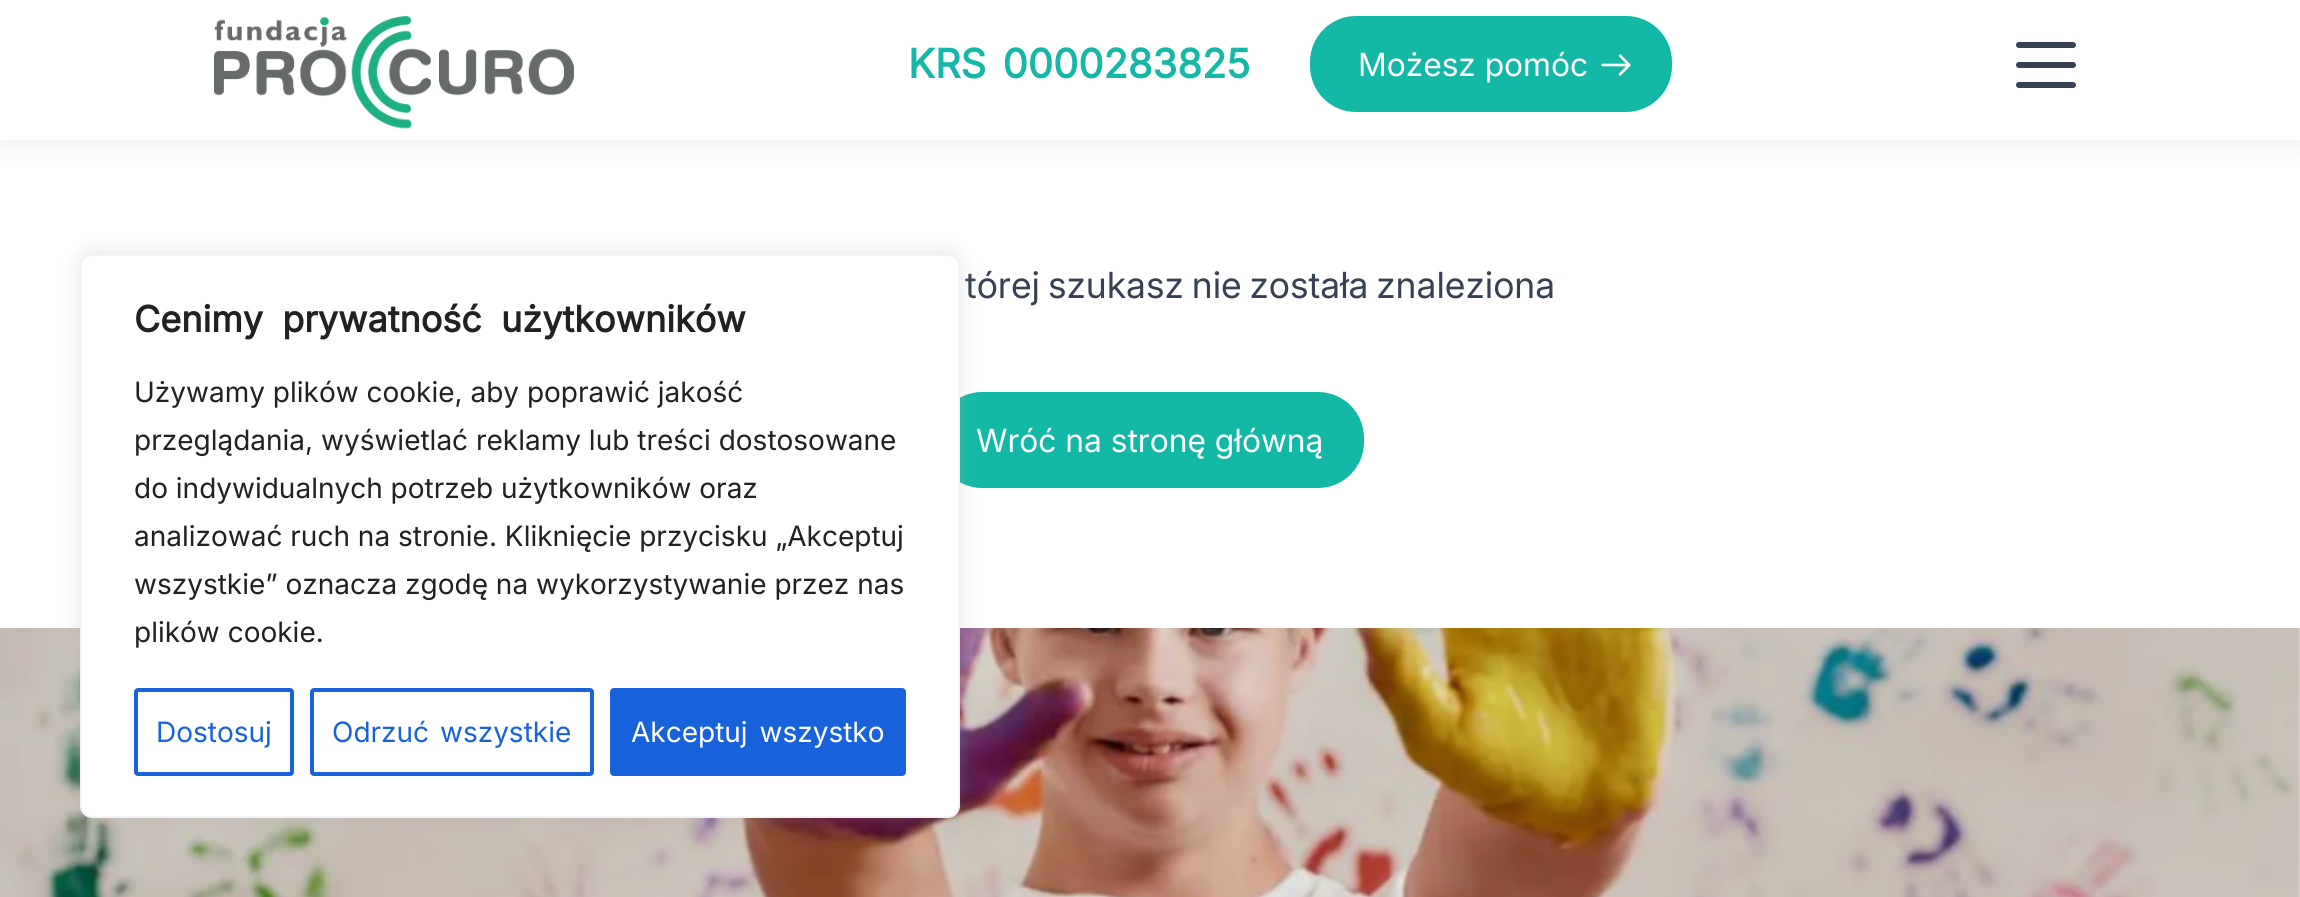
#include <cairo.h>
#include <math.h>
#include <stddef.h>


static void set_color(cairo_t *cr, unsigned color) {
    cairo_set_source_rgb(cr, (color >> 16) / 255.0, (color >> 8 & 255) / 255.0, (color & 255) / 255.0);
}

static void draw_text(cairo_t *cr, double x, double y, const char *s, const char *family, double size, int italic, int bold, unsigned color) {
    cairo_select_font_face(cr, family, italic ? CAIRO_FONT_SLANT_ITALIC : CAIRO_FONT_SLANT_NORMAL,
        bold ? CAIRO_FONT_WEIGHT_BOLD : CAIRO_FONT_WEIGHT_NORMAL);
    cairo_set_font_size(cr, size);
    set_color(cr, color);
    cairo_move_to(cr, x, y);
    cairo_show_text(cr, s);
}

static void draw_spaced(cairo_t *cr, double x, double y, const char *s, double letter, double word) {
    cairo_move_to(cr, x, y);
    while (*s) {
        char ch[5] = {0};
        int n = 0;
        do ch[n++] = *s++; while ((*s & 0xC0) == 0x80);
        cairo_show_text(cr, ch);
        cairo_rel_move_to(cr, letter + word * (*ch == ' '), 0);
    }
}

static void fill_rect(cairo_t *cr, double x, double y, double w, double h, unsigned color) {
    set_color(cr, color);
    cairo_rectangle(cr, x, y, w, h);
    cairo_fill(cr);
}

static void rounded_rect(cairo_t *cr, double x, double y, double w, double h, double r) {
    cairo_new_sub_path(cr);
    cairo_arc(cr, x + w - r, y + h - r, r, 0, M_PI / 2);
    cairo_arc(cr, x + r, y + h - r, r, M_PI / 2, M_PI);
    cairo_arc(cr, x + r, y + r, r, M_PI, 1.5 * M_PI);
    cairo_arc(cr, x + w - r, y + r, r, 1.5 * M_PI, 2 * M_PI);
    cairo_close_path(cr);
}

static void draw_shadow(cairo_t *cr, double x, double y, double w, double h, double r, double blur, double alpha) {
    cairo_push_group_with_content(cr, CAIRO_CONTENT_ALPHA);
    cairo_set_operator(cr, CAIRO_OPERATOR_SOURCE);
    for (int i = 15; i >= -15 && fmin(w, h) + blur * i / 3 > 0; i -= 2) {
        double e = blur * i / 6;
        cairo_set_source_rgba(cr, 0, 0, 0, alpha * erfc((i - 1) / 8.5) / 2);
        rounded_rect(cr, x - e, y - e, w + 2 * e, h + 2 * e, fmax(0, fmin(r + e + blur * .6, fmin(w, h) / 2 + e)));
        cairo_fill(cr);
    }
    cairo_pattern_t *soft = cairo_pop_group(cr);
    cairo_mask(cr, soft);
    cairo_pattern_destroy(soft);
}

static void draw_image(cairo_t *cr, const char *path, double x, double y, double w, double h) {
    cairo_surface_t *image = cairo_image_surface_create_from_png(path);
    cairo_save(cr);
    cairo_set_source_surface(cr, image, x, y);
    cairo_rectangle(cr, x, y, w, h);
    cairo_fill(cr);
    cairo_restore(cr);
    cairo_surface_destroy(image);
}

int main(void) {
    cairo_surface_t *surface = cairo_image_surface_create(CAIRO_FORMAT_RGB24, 2300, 897);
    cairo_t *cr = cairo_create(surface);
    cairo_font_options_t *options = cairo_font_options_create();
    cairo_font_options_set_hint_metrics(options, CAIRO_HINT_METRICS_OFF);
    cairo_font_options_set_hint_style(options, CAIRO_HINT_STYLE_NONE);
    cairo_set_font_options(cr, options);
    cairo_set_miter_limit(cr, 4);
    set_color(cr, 0xFFFFFF);
    cairo_paint(cr);
    set_color(cr, 0x1D1D1D);
    draw_shadow(cr, 0, 0, 2300, 140, 0, 15, 0.1);
    fill_rect(cr, 0, 0, 2300, 140, 0xFFFFFF);
    draw_image(cr, "assets/img1.png", 214, 16, 360, 113);
    cairo_select_font_face(cr, "Inter", CAIRO_FONT_SLANT_NORMAL, CAIRO_FONT_WEIGHT_BOLD);
    cairo_set_font_size(cr, 40);
    set_color(cr, 0x14B8A6);
    draw_spaced(cr, 908, 78, "KRS 0000283825", 0, 5);
    rounded_rect(cr, 1310, 16, 362, 96, 46);
    cairo_fill(cr);
    draw_text(cr, 1358, 76, "Możesz pomóc", "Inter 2", 32, 0, 0, 0xFFFFFF);
    draw_image(cr, "assets/img2.png", 1601, 54, 30, 22);
    set_color(cr, 0x374151);
    rounded_rect(cr, 2016, 42, 60, 6, 3);
    cairo_fill(cr);
    rounded_rect(cr, 2016, 62, 60, 6, 3);
    cairo_fill(cr);
    rounded_rect(cr, 2016, 82, 60, 6, 3);
    cairo_fill(cr);
    cairo_select_font_face(cr, "Inter", CAIRO_FONT_SLANT_NORMAL, CAIRO_FONT_WEIGHT_NORMAL);
    cairo_set_font_size(cr, 36);
    draw_spaced(cr, 965, 298, "tórej szukasz nie została znaleziona", 0, -2);
    set_color(cr, 0x14B8A6);
    rounded_rect(cr, 936, 392, 428, 96, 46);
    cairo_fill(cr);
    draw_text(cr, 976, 452, "Wróć na stronę główną", "Inter 2", 32, 0, 0, 0xFFFFFF);
    draw_image(cr, "assets/img3.png", 0, 628, 2300, 269);
    set_color(cr, 0xACABAB);
    draw_shadow(cr, 80, 252, 880, 564, 12, 10, 0.3);
    set_color(cr, 0xFFFFFF);
    rounded_rect(cr, 81, 255, 878, 562, 11);
    cairo_fill_preserve(cr);
    set_color(cr, 0xF4F4F4);
    cairo_stroke(cr);
    cairo_select_font_face(cr, "Inter", CAIRO_FONT_SLANT_NORMAL, CAIRO_FONT_WEIGHT_BOLD);
    cairo_set_font_size(cr, 36);
    set_color(cr, 0x212121);
    draw_spaced(cr, 134, 332, "Cenimy prywatność użytkowników", 0, 9);
    draw_text(cr, 134, 402, "Używamy plików cookie, aby poprawić jakość", "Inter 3", 28, 0, 0, 0x212121);
    draw_text(cr, 134, 450, "przeglądania, wyświetlać reklamy lub treści dostosowane", "Inter 3", 28, 0, 0, 0x212121);
    draw_text(cr, 134, 498, "do indywidualnych potrzeb użytkowników oraz", "Inter 3", 28, 0, 0, 0x212121);
    draw_text(cr, 134, 546, "analizować ruch na stronie. Kliknięcie przycisku „Akceptuj", "Inter 3", 28, 0, 0, 0x212121);
    draw_text(cr, 134, 594, "wszystkie” oznacza zgodę na wykorzystywanie przez nas", "Inter 3", 28, 0, 0, 0x212121);
    draw_text(cr, 134, 642, "plików cookie.", "Inter 3", 28, 0, 0, 0x212121);
    rounded_rect(cr, 136, 690, 156, 84, 2);
    set_color(cr, 0x1863DC);
    cairo_set_line_width(cr, 4);
    cairo_stroke(cr);
    draw_text(cr, 156, 742, "Dostosuj", "Inter 3", 28, 0, 0, 0x1863DC);
    rounded_rect(cr, 312, 690, 280, 84, 2);
    cairo_stroke(cr);
    draw_spaced(cr, 332, 742, "Odrzuć wszystkie", 0, 3);
    rounded_rect(cr, 612, 690, 292, 84, 2);
    cairo_fill_preserve(cr);
    cairo_stroke(cr);
    set_color(cr, 0xFFFFFF);
    draw_spaced(cr, 631, 742, "Akceptuj wszystko", 0, 4);
    cairo_surface_write_to_png(surface, "output.png");
    cairo_font_options_destroy(options);
    cairo_destroy(cr);
    cairo_surface_destroy(surface);
    return 0;
}
